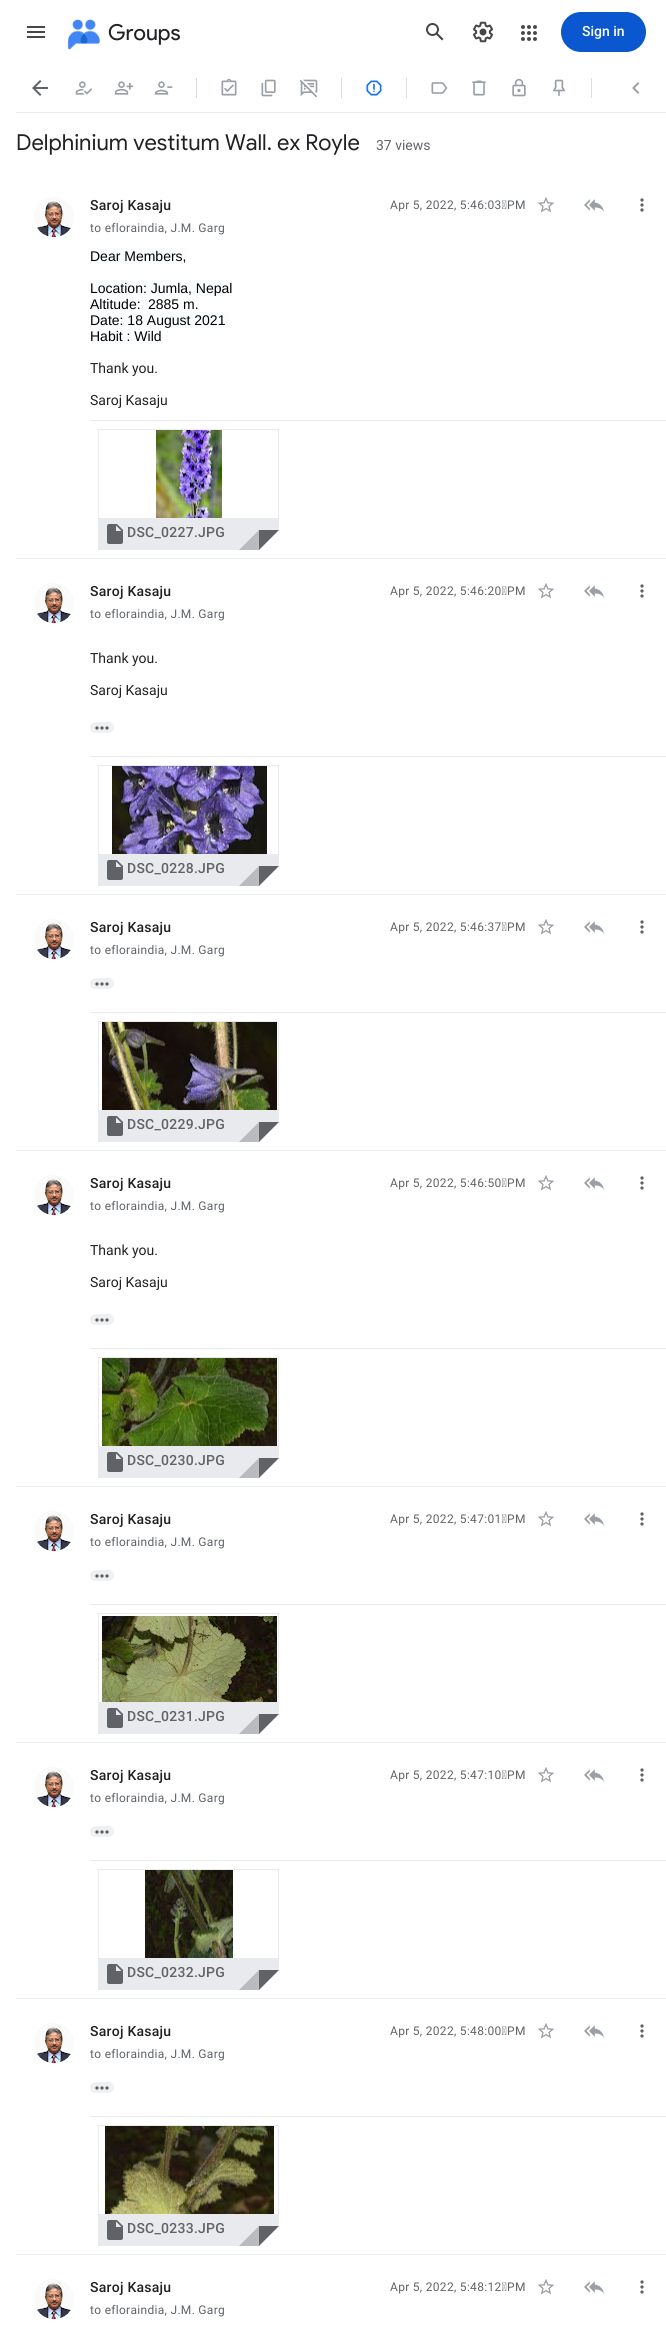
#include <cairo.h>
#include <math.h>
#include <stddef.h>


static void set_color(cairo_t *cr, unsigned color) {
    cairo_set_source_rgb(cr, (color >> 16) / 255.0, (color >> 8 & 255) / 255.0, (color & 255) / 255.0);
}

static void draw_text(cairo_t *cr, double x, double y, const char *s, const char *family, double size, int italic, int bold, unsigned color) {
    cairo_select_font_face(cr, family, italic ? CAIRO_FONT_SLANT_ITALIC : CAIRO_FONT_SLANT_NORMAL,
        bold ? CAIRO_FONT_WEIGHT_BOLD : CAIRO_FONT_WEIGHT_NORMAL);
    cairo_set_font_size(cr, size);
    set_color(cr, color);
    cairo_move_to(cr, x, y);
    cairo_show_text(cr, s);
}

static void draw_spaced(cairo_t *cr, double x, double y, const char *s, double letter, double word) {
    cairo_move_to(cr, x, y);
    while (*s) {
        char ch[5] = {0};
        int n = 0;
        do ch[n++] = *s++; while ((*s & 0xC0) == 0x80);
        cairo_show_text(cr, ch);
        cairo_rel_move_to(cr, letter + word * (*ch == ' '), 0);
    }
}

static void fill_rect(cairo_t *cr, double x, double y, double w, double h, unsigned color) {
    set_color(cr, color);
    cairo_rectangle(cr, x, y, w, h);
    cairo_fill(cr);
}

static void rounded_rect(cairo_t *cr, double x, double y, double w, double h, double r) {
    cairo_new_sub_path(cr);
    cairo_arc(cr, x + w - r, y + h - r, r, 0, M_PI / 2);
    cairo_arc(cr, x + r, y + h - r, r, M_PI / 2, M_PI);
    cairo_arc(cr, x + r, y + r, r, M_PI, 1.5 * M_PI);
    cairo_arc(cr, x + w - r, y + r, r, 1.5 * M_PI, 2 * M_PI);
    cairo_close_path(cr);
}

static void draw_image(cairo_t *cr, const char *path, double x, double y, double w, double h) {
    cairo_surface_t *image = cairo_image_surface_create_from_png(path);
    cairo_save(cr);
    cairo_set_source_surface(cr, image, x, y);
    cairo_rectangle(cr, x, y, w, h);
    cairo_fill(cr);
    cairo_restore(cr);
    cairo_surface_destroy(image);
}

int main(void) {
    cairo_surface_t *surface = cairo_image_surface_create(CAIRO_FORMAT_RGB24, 666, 2346);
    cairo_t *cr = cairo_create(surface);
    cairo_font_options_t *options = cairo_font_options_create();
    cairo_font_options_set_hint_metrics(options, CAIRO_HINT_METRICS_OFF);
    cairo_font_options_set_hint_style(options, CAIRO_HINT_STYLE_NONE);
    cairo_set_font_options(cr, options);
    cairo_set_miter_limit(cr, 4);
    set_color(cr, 0xFFFFFF);
    cairo_paint(cr);
    draw_image(cr, "assets/img1.png", 27, 26, 18, 12);
    draw_image(cr, "assets/img2.png", 68, 19, 32, 31);
    draw_text(cr, 108, 40, "Groups", "Product Sans", 22, 0, 0, 0x202124);
    draw_image(cr, "assets/img3.png", 426, 23, 18, 18);
    draw_image(cr, "assets/img4.png", 473, 21, 20, 22);
    draw_image(cr, "assets/img5.png", 521, 25, 16, 16);
    set_color(cr, 0x0B57D0);
    rounded_rect(cr, 561, 12, 85, 40, 20);
    cairo_fill(cr);
    draw_text(cr, 582, 36, "Sign in", "Roboto Medium", 14, 0, 0, 0xFFFFFF);
    fill_rect(cr, 16, 112, 650, 1, 0xE8EAED);
    draw_image(cr, "assets/img6.png", 32, 80, 16, 16);
    draw_image(cr, "assets/img7.png", 75, 81, 18, 14);
    draw_image(cr, "assets/img8.png", 114, 81, 20, 14);
    draw_image(cr, "assets/img9.png", 154, 81, 19, 14);
    fill_rect(cr, 196, 78, 1, 20, 0xDDDDDD);
    draw_image(cr, "assets/img10.png", 221, 78, 16, 18);
    draw_image(cr, "assets/img11.png", 261, 79, 15, 18);
    draw_image(cr, "assets/img12.png", 299, 79, 19, 19);
    fill_rect(cr, 341, 78, 1, 20, 0xDDDDDD);
    draw_image(cr, "assets/img13.png", 366, 80, 16, 16);
    fill_rect(cr, 406, 78, 1, 20, 0xDDDDDD);
    draw_image(cr, "assets/img14.png", 431, 82, 17, 12);
    draw_image(cr, "assets/img15.png", 472, 80, 14, 16);
    draw_image(cr, "assets/img16.png", 512, 78, 14, 19);
    draw_image(cr, "assets/img17.png", 553, 79, 12, 18);
    fill_rect(cr, 591, 78, 1, 20, 0xDDDDDD);
    draw_image(cr, "assets/img18.png", 632, 82, 8, 12);
    draw_text(cr, 16, 150, "Delphinium vestitum Wall. ex Royle", "Google Sans", 22, 0, 0, 0x202124);
    draw_text(cr, 376, 150, "37 views", "Roboto", 14, 0, 0, 0x5F6368);
    fill_rect(cr, 16, 558, 650, 1, 0xE8EAED);
    draw_image(cr, "assets/img19.png", 34, 197, 40, 40);
    cairo_select_font_face(cr, "Roboto Medium", CAIRO_FONT_SLANT_NORMAL, CAIRO_FONT_WEIGHT_NORMAL);
    set_color(cr, 0x202124);
    draw_spaced(cr, 90, 210, "Saroj Kasaju", 0.25, 0);
    cairo_select_font_face(cr, "Roboto", CAIRO_FONT_SLANT_NORMAL, CAIRO_FONT_WEIGHT_NORMAL);
    cairo_set_font_size(cr, 12);
    set_color(cr, 0x5F6368);
    draw_spaced(cr, 390, 209, "Apr 5, 2022, 5:46:03 PM", 0.3, 0);
    draw_image(cr, "assets/img20.png", 537, 197, 18, 16);
    draw_image(cr, "assets/img21.png", 584, 199, 20, 13);
    draw_image(cr, "assets/img22.png", 640, 198, 4, 14);
    draw_spaced(cr, 90, 232, "to efloraindia, J.M. Garg", 0.3, 0);
    fill_rect(cr, 90, 248, 96, 16, 0xFAFCFE);
    draw_text(cr, 90, 261, "Dear Members,", "Liberation Sans", 14, 0, 0, 0x000000);
    fill_rect(cr, 90, 280, 142, 16, 0xFAFCFE);
    draw_text(cr, 90, 293, "Location: Jumla, Nepal", "Liberation Sans", 14, 0, 0, 0x000000);
    fill_rect(cr, 90, 296, 58, 16, 0xFAFCFE);
    draw_text(cr, 90, 309, "Altitude:", "Liberation Sans", 14, 0, 0, 0x000000);
    draw_text(cr, 148, 309, "2885 m.", "Liberation Sans", 14, 0, 0, 0x000000);
    fill_rect(cr, 90, 312, 139, 16, 0xFAFCFE);
    draw_text(cr, 90, 325, "Date: 18 August 2021", "Liberation Sans", 14, 0, 0, 0x000000);
    fill_rect(cr, 90, 328, 72, 16, 0xFAFCFE);
    draw_text(cr, 90, 341, "Habit : Wild", "Liberation Sans", 14, 0, 0, 0x000000);
    draw_text(cr, 90, 373, "Thank you.", "Roboto", 14, 0, 0, 0x202124);
    draw_text(cr, 90, 405, "Saroj Kasaju", "Roboto", 14, 0, 0, 0x202124);
    fill_rect(cr, 90, 420, 576, 1, 0xE8EAED);
    draw_image(cr, "assets/img23.png", 156, 430, 66, 88);
    fill_rect(cr, 98, 429, 181, 1, 0xE8EAED);
    fill_rect(cr, 98, 429, 1, 121, 0xE8EAED);
    fill_rect(cr, 278, 430, 1, 100, 0xE8EAED);
    fill_rect(cr, 99, 518, 179, 32, 0xE8EAED);
    draw_image(cr, "assets/img24.png", 107, 524, 16, 20);
    cairo_select_font_face(cr, "Roboto Medium", CAIRO_FONT_SLANT_NORMAL, CAIRO_FONT_WEIGHT_NORMAL);
    set_color(cr, 0x5F6368);
    draw_spaced(cr, 127, 537, "DSC_0227.JPG", 0.25, 0);
    set_color(cr, 0xBABBBE);
    cairo_new_path(cr);
    cairo_move_to(cr, 239, 550);
    cairo_line_to(cr, 259, 550);
    cairo_line_to(cr, 259, 530);
    cairo_close_path(cr);
    cairo_fill(cr);
    fill_rect(cr, 259, 530, 20, 20, 0x5F6368);
    set_color(cr, 0xFFFFFF);
    cairo_new_path(cr);
    cairo_move_to(cr, 259, 550);
    cairo_line_to(cr, 279, 550);
    cairo_line_to(cr, 279, 530);
    cairo_close_path(cr);
    cairo_fill(cr);
    fill_rect(cr, 16, 894, 650, 1, 0xE8EAED);
    draw_image(cr, "assets/img19.png", 34, 583, 40, 40);
    set_color(cr, 0x202124);
    draw_spaced(cr, 90, 596, "Saroj Kasaju", 0.25, 0);
    cairo_select_font_face(cr, "Roboto", CAIRO_FONT_SLANT_NORMAL, CAIRO_FONT_WEIGHT_NORMAL);
    cairo_set_font_size(cr, 12);
    set_color(cr, 0x5F6368);
    draw_spaced(cr, 390, 595, "Apr 5, 2022, 5:46:20 PM", 0.3, 0);
    draw_image(cr, "assets/img20.png", 537, 583, 18, 16);
    draw_image(cr, "assets/img21.png", 584, 585, 20, 13);
    draw_image(cr, "assets/img22.png", 640, 584, 4, 14);
    draw_spaced(cr, 90, 618, "to efloraindia, J.M. Garg", 0.3, 0);
    draw_text(cr, 90, 663, "Thank you.", "Roboto", 14, 0, 0, 0x202124);
    draw_text(cr, 90, 695, "Saroj Kasaju", "Roboto", 14, 0, 0, 0x202124);
    set_color(cr, 0xEFF0F2);
    rounded_rect(cr, 90, 722, 24, 11, 5.5);
    cairo_fill(cr);
    draw_image(cr, "assets/img25.png", 95, 726, 14, 4);
    fill_rect(cr, 90, 756, 576, 1, 0xE8EAED);
    draw_image(cr, "assets/img26.png", 112, 766, 155, 88);
    fill_rect(cr, 98, 765, 181, 1, 0xE8EAED);
    fill_rect(cr, 98, 765, 1, 121, 0xE8EAED);
    fill_rect(cr, 278, 766, 1, 100, 0xE8EAED);
    fill_rect(cr, 99, 854, 179, 32, 0xE8EAED);
    draw_image(cr, "assets/img24.png", 107, 860, 16, 20);
    cairo_select_font_face(cr, "Roboto Medium", CAIRO_FONT_SLANT_NORMAL, CAIRO_FONT_WEIGHT_NORMAL);
    set_color(cr, 0x5F6368);
    draw_spaced(cr, 127, 873, "DSC_0228.JPG", 0.25, 0);
    set_color(cr, 0xBABBBE);
    cairo_new_path(cr);
    cairo_move_to(cr, 239, 886);
    cairo_line_to(cr, 259, 886);
    cairo_line_to(cr, 259, 866);
    cairo_close_path(cr);
    cairo_fill(cr);
    fill_rect(cr, 259, 866, 20, 20, 0x5F6368);
    set_color(cr, 0xFFFFFF);
    cairo_new_path(cr);
    cairo_move_to(cr, 259, 886);
    cairo_line_to(cr, 279, 886);
    cairo_line_to(cr, 279, 866);
    cairo_close_path(cr);
    cairo_fill(cr);
    fill_rect(cr, 16, 1150, 650, 1, 0xE8EAED);
    draw_image(cr, "assets/img19.png", 34, 919, 40, 40);
    set_color(cr, 0x202124);
    draw_spaced(cr, 90, 932, "Saroj Kasaju", 0.25, 0);
    cairo_select_font_face(cr, "Roboto", CAIRO_FONT_SLANT_NORMAL, CAIRO_FONT_WEIGHT_NORMAL);
    cairo_set_font_size(cr, 12);
    set_color(cr, 0x5F6368);
    draw_spaced(cr, 390, 931, "Apr 5, 2022, 5:46:37 PM", 0.3, 0);
    draw_image(cr, "assets/img20.png", 537, 919, 18, 16);
    draw_image(cr, "assets/img21.png", 584, 921, 20, 13);
    draw_image(cr, "assets/img22.png", 640, 920, 4, 14);
    draw_spaced(cr, 90, 954, "to efloraindia, J.M. Garg", 0.3, 0);
    set_color(cr, 0xEFF0F2);
    rounded_rect(cr, 90, 978, 24, 11, 5.5);
    cairo_fill(cr);
    draw_image(cr, "assets/img25.png", 95, 982, 14, 4);
    fill_rect(cr, 90, 1012, 576, 1, 0xE8EAED);
    draw_image(cr, "assets/img27.png", 102, 1022, 175, 88);
    fill_rect(cr, 98, 1021, 181, 1, 0xE8EAED);
    fill_rect(cr, 98, 1021, 1, 121, 0xE8EAED);
    fill_rect(cr, 278, 1022, 1, 100, 0xE8EAED);
    fill_rect(cr, 99, 1110, 179, 32, 0xE8EAED);
    draw_image(cr, "assets/img24.png", 107, 1116, 16, 20);
    cairo_select_font_face(cr, "Roboto Medium", CAIRO_FONT_SLANT_NORMAL, CAIRO_FONT_WEIGHT_NORMAL);
    cairo_set_font_size(cr, 14);
    set_color(cr, 0x5F6368);
    draw_spaced(cr, 127, 1129, "DSC_0229.JPG", 0.25, 0);
    set_color(cr, 0xBABBBE);
    cairo_new_path(cr);
    cairo_move_to(cr, 239, 1142);
    cairo_line_to(cr, 259, 1142);
    cairo_line_to(cr, 259, 1122);
    cairo_close_path(cr);
    cairo_fill(cr);
    fill_rect(cr, 259, 1122, 20, 20, 0x5F6368);
    set_color(cr, 0xFFFFFF);
    cairo_new_path(cr);
    cairo_move_to(cr, 259, 1142);
    cairo_line_to(cr, 279, 1142);
    cairo_line_to(cr, 279, 1122);
    cairo_close_path(cr);
    cairo_fill(cr);
    fill_rect(cr, 16, 1486, 650, 1, 0xE8EAED);
    draw_image(cr, "assets/img19.png", 34, 1175, 40, 40);
    set_color(cr, 0x202124);
    draw_spaced(cr, 90, 1188, "Saroj Kasaju", 0.25, 0);
    cairo_select_font_face(cr, "Roboto", CAIRO_FONT_SLANT_NORMAL, CAIRO_FONT_WEIGHT_NORMAL);
    cairo_set_font_size(cr, 12);
    set_color(cr, 0x5F6368);
    draw_spaced(cr, 390, 1187, "Apr 5, 2022, 5:46:50 PM", 0.3, 0);
    draw_image(cr, "assets/img20.png", 537, 1175, 18, 16);
    draw_image(cr, "assets/img21.png", 584, 1177, 20, 13);
    draw_image(cr, "assets/img22.png", 640, 1176, 4, 14);
    draw_spaced(cr, 90, 1210, "to efloraindia, J.M. Garg", 0.3, 0);
    draw_text(cr, 90, 1255, "Thank you.", "Roboto", 14, 0, 0, 0x202124);
    draw_text(cr, 90, 1287, "Saroj Kasaju", "Roboto", 14, 0, 0, 0x202124);
    set_color(cr, 0xEFF0F2);
    rounded_rect(cr, 90, 1314, 24, 11, 5.5);
    cairo_fill(cr);
    draw_image(cr, "assets/img25.png", 95, 1318, 14, 4);
    fill_rect(cr, 90, 1348, 576, 1, 0xE8EAED);
    draw_image(cr, "assets/img28.png", 102, 1358, 175, 88);
    fill_rect(cr, 98, 1357, 181, 1, 0xE8EAED);
    fill_rect(cr, 98, 1357, 1, 121, 0xE8EAED);
    fill_rect(cr, 278, 1358, 1, 100, 0xE8EAED);
    fill_rect(cr, 99, 1446, 179, 32, 0xE8EAED);
    draw_image(cr, "assets/img24.png", 107, 1452, 16, 20);
    cairo_select_font_face(cr, "Roboto Medium", CAIRO_FONT_SLANT_NORMAL, CAIRO_FONT_WEIGHT_NORMAL);
    set_color(cr, 0x5F6368);
    draw_spaced(cr, 127, 1465, "DSC_0230.JPG", 0.25, 0);
    set_color(cr, 0xBABBBE);
    cairo_new_path(cr);
    cairo_move_to(cr, 239, 1478);
    cairo_line_to(cr, 259, 1478);
    cairo_line_to(cr, 259, 1458);
    cairo_close_path(cr);
    cairo_fill(cr);
    fill_rect(cr, 259, 1458, 20, 20, 0x5F6368);
    set_color(cr, 0xFFFFFF);
    cairo_new_path(cr);
    cairo_move_to(cr, 259, 1478);
    cairo_line_to(cr, 279, 1478);
    cairo_line_to(cr, 279, 1458);
    cairo_close_path(cr);
    cairo_fill(cr);
    fill_rect(cr, 16, 1742, 650, 1, 0xE8EAED);
    draw_image(cr, "assets/img29.png", 34, 1511, 40, 40);
    set_color(cr, 0x202124);
    draw_spaced(cr, 90, 1524, "Saroj Kasaju", 0.25, 0);
    cairo_select_font_face(cr, "Roboto", CAIRO_FONT_SLANT_NORMAL, CAIRO_FONT_WEIGHT_NORMAL);
    cairo_set_font_size(cr, 12);
    set_color(cr, 0x5F6368);
    draw_spaced(cr, 390, 1523, "Apr 5, 2022, 5:47:01 PM", 0.3, 0);
    draw_image(cr, "assets/img20.png", 537, 1511, 18, 16);
    draw_image(cr, "assets/img21.png", 584, 1513, 20, 13);
    draw_image(cr, "assets/img22.png", 640, 1512, 4, 14);
    draw_spaced(cr, 90, 1546, "to efloraindia, J.M. Garg", 0.3, 0);
    set_color(cr, 0xEFF0F2);
    rounded_rect(cr, 90, 1570, 24, 11, 5.5);
    cairo_fill(cr);
    draw_image(cr, "assets/img25.png", 95, 1574, 14, 4);
    fill_rect(cr, 90, 1604, 576, 1, 0xE8EAED);
    draw_image(cr, "assets/img30.png", 102, 1616, 175, 86);
    fill_rect(cr, 98, 1613, 181, 1, 0xE8EAED);
    fill_rect(cr, 98, 1613, 1, 121, 0xE8EAED);
    fill_rect(cr, 278, 1614, 1, 100, 0xE8EAED);
    fill_rect(cr, 99, 1702, 179, 32, 0xE8EAED);
    draw_image(cr, "assets/img24.png", 107, 1708, 16, 20);
    cairo_select_font_face(cr, "Roboto Medium", CAIRO_FONT_SLANT_NORMAL, CAIRO_FONT_WEIGHT_NORMAL);
    cairo_set_font_size(cr, 14);
    set_color(cr, 0x5F6368);
    draw_spaced(cr, 127, 1721, "DSC_0231.JPG", 0.25, 0);
    set_color(cr, 0xBABBBE);
    cairo_new_path(cr);
    cairo_move_to(cr, 239, 1734);
    cairo_line_to(cr, 259, 1734);
    cairo_line_to(cr, 259, 1714);
    cairo_close_path(cr);
    cairo_fill(cr);
    fill_rect(cr, 259, 1714, 20, 20, 0x5F6368);
    set_color(cr, 0xFFFFFF);
    cairo_new_path(cr);
    cairo_move_to(cr, 259, 1734);
    cairo_line_to(cr, 279, 1734);
    cairo_line_to(cr, 279, 1714);
    cairo_close_path(cr);
    cairo_fill(cr);
    fill_rect(cr, 16, 1998, 650, 1, 0xE8EAED);
    draw_image(cr, "assets/img31.png", 34, 1767, 40, 40);
    set_color(cr, 0x202124);
    draw_spaced(cr, 90, 1780, "Saroj Kasaju", 0.25, 0);
    cairo_select_font_face(cr, "Roboto", CAIRO_FONT_SLANT_NORMAL, CAIRO_FONT_WEIGHT_NORMAL);
    cairo_set_font_size(cr, 12);
    set_color(cr, 0x5F6368);
    draw_spaced(cr, 390, 1779, "Apr 5, 2022, 5:47:10 PM", 0.3, 0);
    draw_image(cr, "assets/img20.png", 537, 1767, 18, 16);
    draw_image(cr, "assets/img21.png", 584, 1769, 20, 13);
    draw_image(cr, "assets/img22.png", 640, 1768, 4, 14);
    draw_spaced(cr, 90, 1802, "to efloraindia, J.M. Garg", 0.3, 0);
    set_color(cr, 0xEFF0F2);
    rounded_rect(cr, 90, 1826, 24, 11, 5.5);
    cairo_fill(cr);
    draw_image(cr, "assets/img25.png", 95, 1830, 14, 4);
    fill_rect(cr, 90, 1860, 576, 1, 0xE8EAED);
    draw_image(cr, "assets/img32.png", 145, 1870, 88, 88);
    fill_rect(cr, 98, 1869, 181, 1, 0xE8EAED);
    fill_rect(cr, 98, 1869, 1, 121, 0xE8EAED);
    fill_rect(cr, 278, 1870, 1, 100, 0xE8EAED);
    fill_rect(cr, 99, 1958, 179, 32, 0xE8EAED);
    draw_image(cr, "assets/img24.png", 107, 1964, 16, 20);
    cairo_select_font_face(cr, "Roboto Medium", CAIRO_FONT_SLANT_NORMAL, CAIRO_FONT_WEIGHT_NORMAL);
    cairo_set_font_size(cr, 14);
    set_color(cr, 0x5F6368);
    draw_spaced(cr, 127, 1977, "DSC_0232.JPG", 0.25, 0);
    set_color(cr, 0xBABBBE);
    cairo_new_path(cr);
    cairo_move_to(cr, 239, 1990);
    cairo_line_to(cr, 259, 1990);
    cairo_line_to(cr, 259, 1970);
    cairo_close_path(cr);
    cairo_fill(cr);
    fill_rect(cr, 259, 1970, 20, 20, 0x5F6368);
    set_color(cr, 0xFFFFFF);
    cairo_new_path(cr);
    cairo_move_to(cr, 259, 1990);
    cairo_line_to(cr, 279, 1990);
    cairo_line_to(cr, 279, 1970);
    cairo_close_path(cr);
    cairo_fill(cr);
    fill_rect(cr, 16, 2254, 650, 1, 0xE8EAED);
    draw_image(cr, "assets/img33.png", 34, 2023, 40, 40);
    set_color(cr, 0x202124);
    draw_spaced(cr, 90, 2036, "Saroj Kasaju", 0.25, 0);
    cairo_select_font_face(cr, "Roboto", CAIRO_FONT_SLANT_NORMAL, CAIRO_FONT_WEIGHT_NORMAL);
    cairo_set_font_size(cr, 12);
    set_color(cr, 0x5F6368);
    draw_spaced(cr, 390, 2035, "Apr 5, 2022, 5:48:00 PM", 0.3, 0);
    draw_image(cr, "assets/img20.png", 537, 2023, 18, 16);
    draw_image(cr, "assets/img21.png", 584, 2025, 20, 13);
    draw_image(cr, "assets/img22.png", 640, 2024, 4, 14);
    draw_spaced(cr, 90, 2058, "to efloraindia, J.M. Garg", 0.3, 0);
    set_color(cr, 0xEFF0F2);
    rounded_rect(cr, 90, 2082, 24, 11, 5.5);
    cairo_fill(cr);
    draw_image(cr, "assets/img25.png", 95, 2086, 14, 4);
    fill_rect(cr, 90, 2116, 576, 1, 0xE8EAED);
    draw_image(cr, "assets/img34.png", 105, 2126, 169, 88);
    fill_rect(cr, 98, 2125, 181, 1, 0xE8EAED);
    fill_rect(cr, 98, 2125, 1, 121, 0xE8EAED);
    fill_rect(cr, 278, 2126, 1, 100, 0xE8EAED);
    fill_rect(cr, 99, 2214, 179, 32, 0xE8EAED);
    draw_image(cr, "assets/img24.png", 107, 2220, 16, 20);
    cairo_select_font_face(cr, "Roboto Medium", CAIRO_FONT_SLANT_NORMAL, CAIRO_FONT_WEIGHT_NORMAL);
    cairo_set_font_size(cr, 14);
    set_color(cr, 0x5F6368);
    draw_spaced(cr, 127, 2233, "DSC_0233.JPG", 0.25, 0);
    set_color(cr, 0xBABBBE);
    cairo_new_path(cr);
    cairo_move_to(cr, 239, 2246);
    cairo_line_to(cr, 259, 2246);
    cairo_line_to(cr, 259, 2226);
    cairo_close_path(cr);
    cairo_fill(cr);
    fill_rect(cr, 259, 2226, 20, 20, 0x5F6368);
    set_color(cr, 0xFFFFFF);
    cairo_new_path(cr);
    cairo_move_to(cr, 259, 2246);
    cairo_line_to(cr, 279, 2246);
    cairo_line_to(cr, 279, 2226);
    cairo_close_path(cr);
    cairo_fill(cr);
    draw_image(cr, "assets/img35.png", 34, 2279, 40, 40);
    set_color(cr, 0x202124);
    draw_spaced(cr, 90, 2292, "Saroj Kasaju", 0.25, 0);
    cairo_select_font_face(cr, "Roboto", CAIRO_FONT_SLANT_NORMAL, CAIRO_FONT_WEIGHT_NORMAL);
    cairo_set_font_size(cr, 12);
    set_color(cr, 0x5F6368);
    draw_spaced(cr, 390, 2291, "Apr 5, 2022, 5:48:12 PM", 0.3, 0);
    draw_image(cr, "assets/img20.png", 537, 2279, 18, 16);
    draw_image(cr, "assets/img21.png", 584, 2281, 20, 13);
    draw_image(cr, "assets/img22.png", 640, 2280, 4, 14);
    draw_spaced(cr, 90, 2314, "to efloraindia, J.M. Garg", 0.3, 0);
    cairo_surface_write_to_png(surface, "output.png");
    cairo_font_options_destroy(options);
    cairo_destroy(cr);
    cairo_surface_destroy(surface);
    return 0;
}
